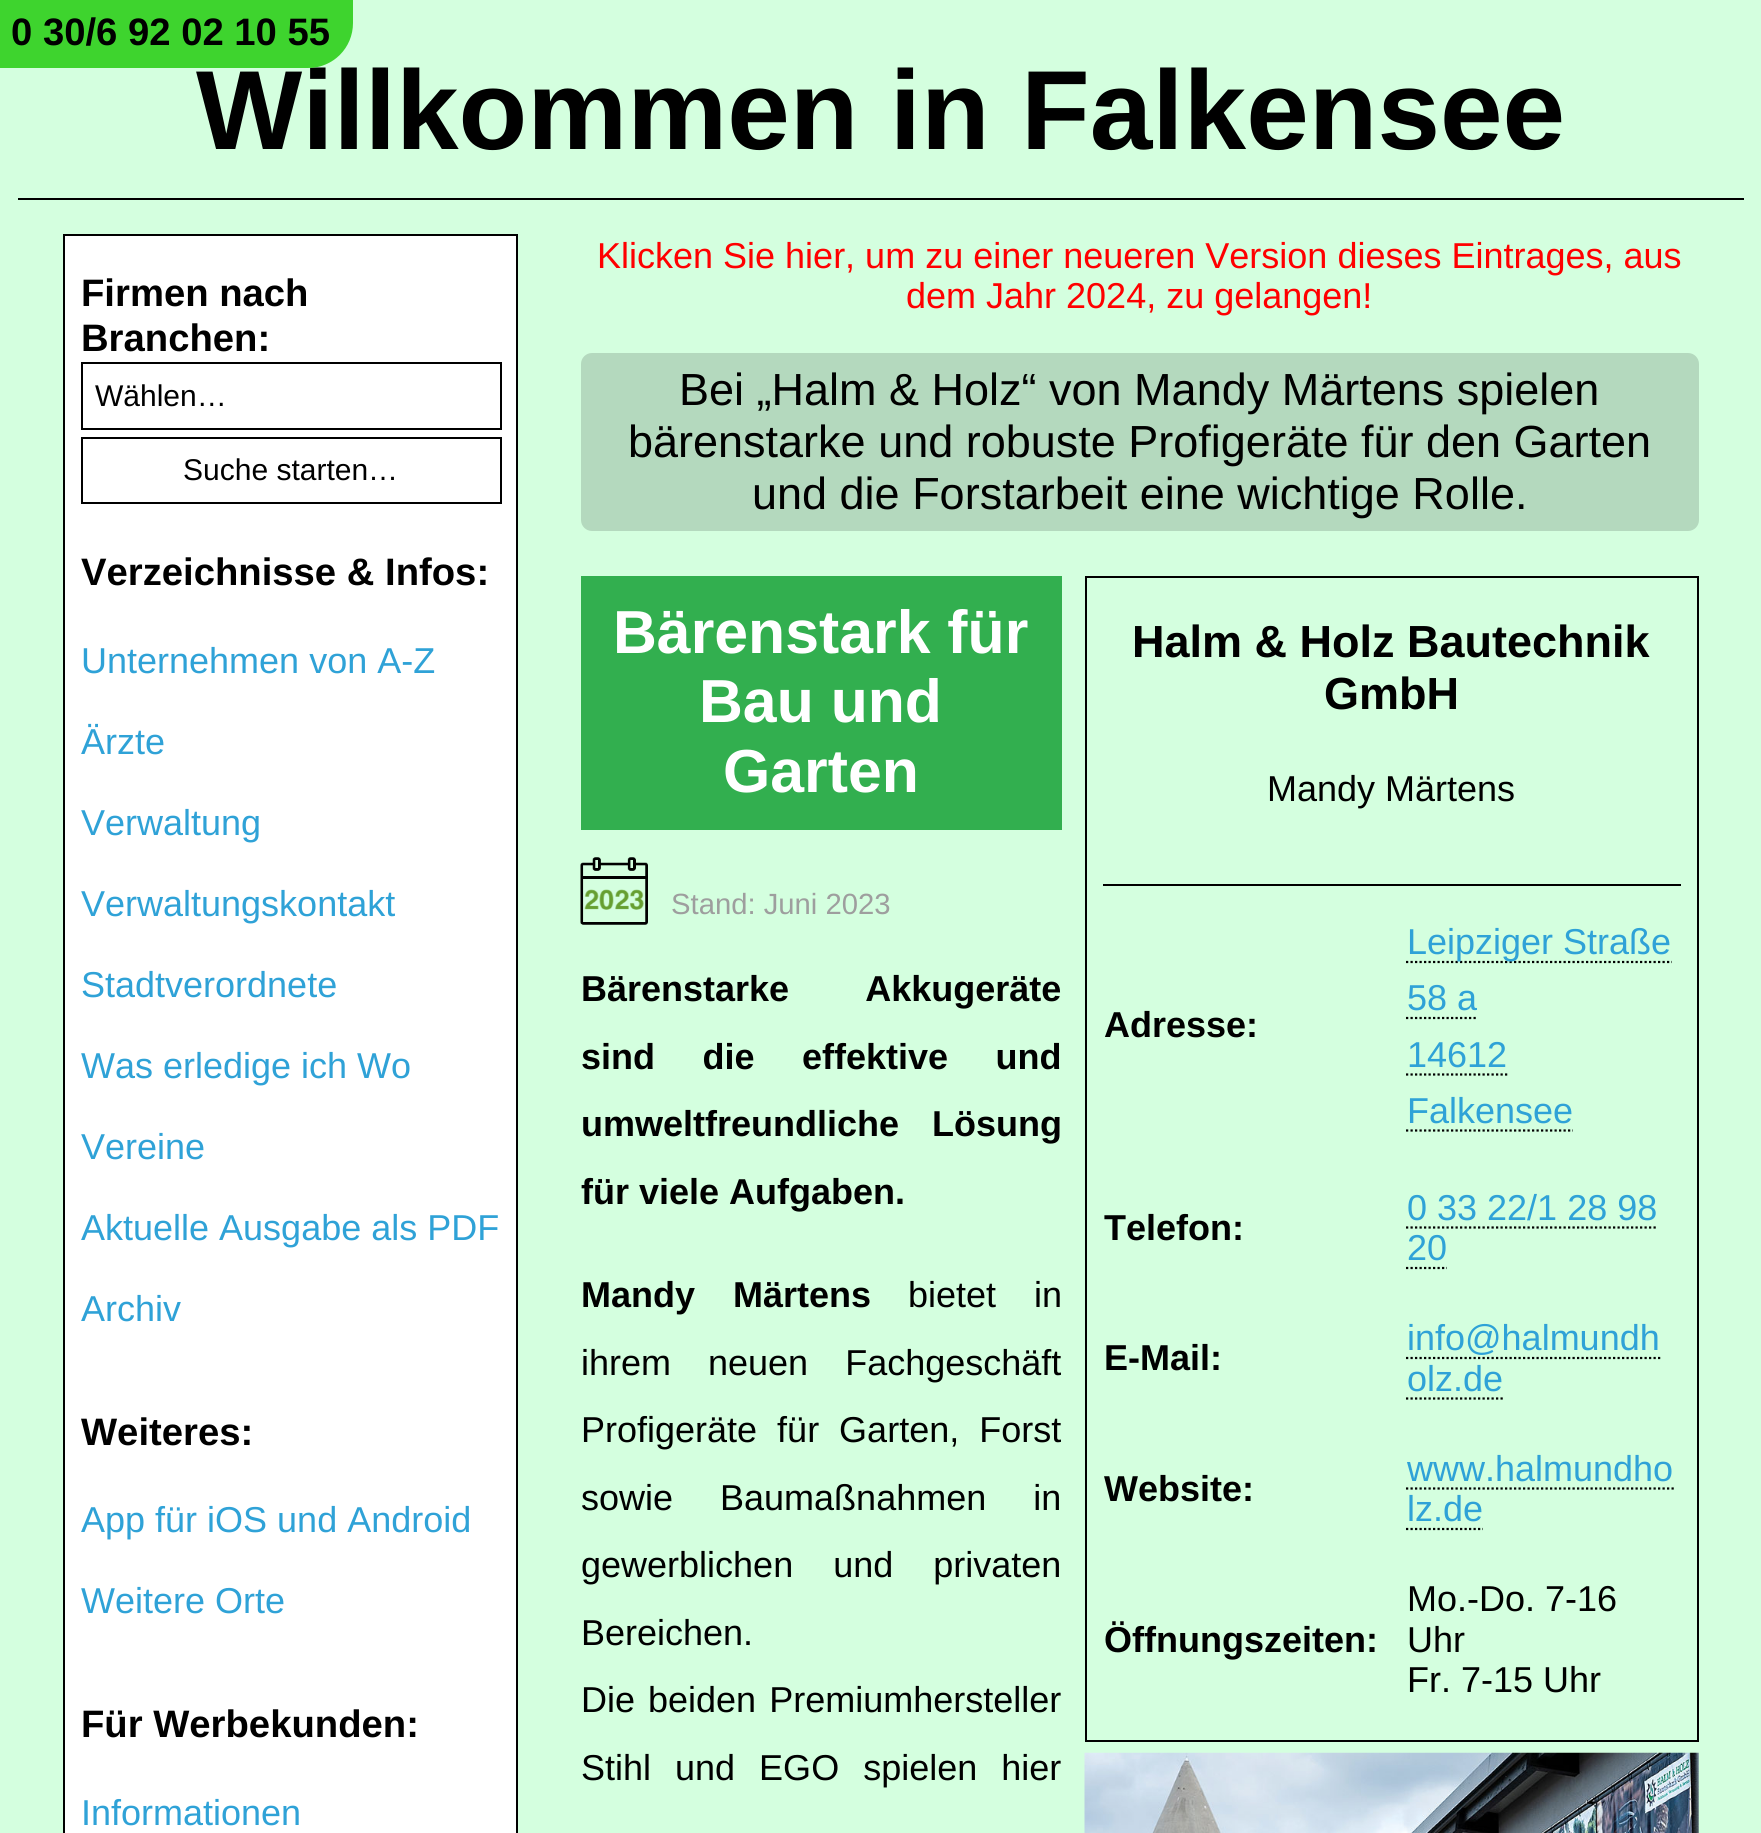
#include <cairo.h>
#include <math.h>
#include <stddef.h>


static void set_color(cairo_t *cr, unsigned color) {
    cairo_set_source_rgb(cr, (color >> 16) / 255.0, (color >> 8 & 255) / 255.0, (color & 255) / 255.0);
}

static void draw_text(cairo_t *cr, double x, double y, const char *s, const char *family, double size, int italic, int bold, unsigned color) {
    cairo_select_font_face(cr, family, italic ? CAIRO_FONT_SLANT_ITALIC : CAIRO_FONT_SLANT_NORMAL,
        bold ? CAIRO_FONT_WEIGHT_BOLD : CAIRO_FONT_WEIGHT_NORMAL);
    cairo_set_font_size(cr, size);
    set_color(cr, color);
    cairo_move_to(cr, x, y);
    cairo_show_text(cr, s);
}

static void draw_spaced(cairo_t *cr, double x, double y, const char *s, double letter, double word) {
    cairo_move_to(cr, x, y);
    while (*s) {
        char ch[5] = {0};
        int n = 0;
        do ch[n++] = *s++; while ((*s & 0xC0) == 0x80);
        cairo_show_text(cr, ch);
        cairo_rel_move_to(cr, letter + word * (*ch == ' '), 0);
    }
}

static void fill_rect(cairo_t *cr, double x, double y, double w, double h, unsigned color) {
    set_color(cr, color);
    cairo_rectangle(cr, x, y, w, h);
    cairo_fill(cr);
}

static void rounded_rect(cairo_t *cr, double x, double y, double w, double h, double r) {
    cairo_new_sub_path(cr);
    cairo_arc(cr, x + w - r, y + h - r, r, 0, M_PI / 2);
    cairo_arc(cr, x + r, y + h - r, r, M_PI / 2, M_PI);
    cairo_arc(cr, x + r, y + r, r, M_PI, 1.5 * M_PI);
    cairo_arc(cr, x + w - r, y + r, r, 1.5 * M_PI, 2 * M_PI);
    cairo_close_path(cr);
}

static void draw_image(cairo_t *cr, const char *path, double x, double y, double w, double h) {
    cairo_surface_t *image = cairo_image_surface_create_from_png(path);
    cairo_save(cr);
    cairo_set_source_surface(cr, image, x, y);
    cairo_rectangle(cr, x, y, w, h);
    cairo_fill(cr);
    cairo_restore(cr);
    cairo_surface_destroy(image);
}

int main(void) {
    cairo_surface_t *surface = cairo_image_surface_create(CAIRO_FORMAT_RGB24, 1761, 1833);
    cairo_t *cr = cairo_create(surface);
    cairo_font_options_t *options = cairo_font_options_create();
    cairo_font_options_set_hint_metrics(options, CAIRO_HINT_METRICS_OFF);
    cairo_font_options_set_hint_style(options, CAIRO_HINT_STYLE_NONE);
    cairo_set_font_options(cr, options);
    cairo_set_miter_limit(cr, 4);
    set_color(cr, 0xD4FFDF);
    cairo_paint(cr);
    draw_text(cr, 196, 149, "Willkommen in Falkensee", "Liberation Sans", 112.5, 0, 1, 0x000000);
    set_color(cr, 0x3ED42E);
    cairo_new_path(cr);
    cairo_move_to(cr, 0, 0);
    cairo_line_to(cr, 353, 0);
    cairo_line_to(cr, 353, 23);
    cairo_curve_to(cr, 353, 48, 333, 68, 308, 68);
    cairo_line_to(cr, 0, 68);
    cairo_close_path(cr);
    cairo_fill(cr);
    draw_text(cr, 11, 45, "0 30/6 92 02 10 55", "Liberation Sans", 38.25, 0, 1, 0x000000);
    fill_rect(cr, 18, 198, 1726, 2, 0x000000);
    set_color(cr, 0xFFFFFF);
    cairo_rectangle(cr, 64, 235, 453, 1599);
    cairo_fill_preserve(cr);
    set_color(cr, 0x000000);
    cairo_stroke(cr);
    draw_text(cr, 81, 306, "Firmen nach", "Liberation Sans", 38.25, 0, 1, 0x000000);
    draw_text(cr, 81, 351, "Branchen:", "Liberation Sans", 38.25, 0, 1, 0x000000);
    cairo_rectangle(cr, 82, 363, 419, 66);
    cairo_stroke(cr);
    draw_text(cr, 95, 406, "Wählen…", "Liberation Sans", 30, 0, 0, 0x000000);
    cairo_rectangle(cr, 82, 438, 419, 65);
    cairo_stroke(cr);
    draw_text(cr, 183, 480, "Suche starten…", "Liberation Sans", 30, 0, 0, 0x000000);
    draw_text(cr, 81, 585, "Verzeichnisse & Infos:", "Liberation Sans", 38.25, 0, 1, 0x000000);
    draw_text(cr, 81, 673, "Unternehmen von A-Z", "Liberation Sans", 36, 0, 0, 0x2FA2D7);
    draw_text(cr, 81, 754, "Ärzte", "Liberation Sans", 36, 0, 0, 0x2FA2D7);
    draw_text(cr, 81, 835, "Verwaltung", "Liberation Sans", 36, 0, 0, 0x2FA2D7);
    draw_text(cr, 81, 916, "Verwaltungskontakt", "Liberation Sans", 36, 0, 0, 0x2FA2D7);
    draw_text(cr, 81, 997, "Stadtverordnete", "Liberation Sans", 36, 0, 0, 0x2FA2D7);
    draw_text(cr, 81, 1078, "Was erledige ich Wo", "Liberation Sans", 36, 0, 0, 0x2FA2D7);
    draw_text(cr, 81, 1159, "Vereine", "Liberation Sans", 36, 0, 0, 0x2FA2D7);
    draw_text(cr, 81, 1240, "Aktuelle Ausgabe als PDF", "Liberation Sans", 36, 0, 0, 0x2FA2D7);
    draw_text(cr, 81, 1321, "Archiv", "Liberation Sans", 36, 0, 0, 0x2FA2D7);
    draw_text(cr, 81, 1445, "Weiteres:", "Liberation Sans", 38.25, 0, 1, 0x000000);
    draw_text(cr, 81, 1532, "App für iOS und Android", "Liberation Sans", 36, 0, 0, 0x2FA2D7);
    draw_text(cr, 81, 1613, "Weitere Orte", "Liberation Sans", 36, 0, 0, 0x2FA2D7);
    draw_text(cr, 81, 1737, "Für Werbekunden:", "Liberation Sans", 38.25, 0, 1, 0x000000);
    draw_text(cr, 81, 1825, "Informationen", "Liberation Sans", 36, 0, 0, 0x2FA2D7);
    draw_text(cr, 597, 268, "Klicken Sie hier, um zu einer neueren Version dieses Eintrages, aus", "Liberation Sans", 36, 0, 0, 0xFF0000);
    draw_text(cr, 906, 308, "dem Jahr 2024, zu gelangen!", "Liberation Sans", 36, 0, 0, 0xFF0000);
    set_color(cr, 0xB4D9BE);
    rounded_rect(cr, 581, 353, 1118, 178, 11);
    cairo_fill(cr);
    draw_text(cr, 679, 405, "Bei „Halm & Holz“ von Mandy Märtens spielen", "Liberation Sans", 45, 0, 0, 0x000000);
    draw_text(cr, 628, 457, "bärenstarke und robuste Profigeräte für den Garten", "Liberation Sans", 45, 0, 0, 0x000000);
    draw_text(cr, 752, 509, "und die Forstarbeit eine wichtige Rolle.", "Liberation Sans", 45, 0, 0, 0x000000);
    fill_rect(cr, 581, 576, 481, 254, 0x32AF4F);
    draw_text(cr, 613, 653, "Bärenstark für", "Liberation Sans", 60.75, 0, 1, 0xFFFFFF);
    draw_text(cr, 699, 722, "Bau und", "Liberation Sans", 60.75, 0, 1, 0xFFFFFF);
    draw_text(cr, 723, 792, "Garten", "Liberation Sans", 60.75, 0, 1, 0xFFFFFF);
    cairo_rectangle(cr, 1086, 577, 612, 1164);
    set_color(cr, 0x000000);
    cairo_stroke(cr);
    draw_text(cr, 1132, 657, "Halm & Holz Bautechnik", "Liberation Sans", 45, 0, 1, 0x000000);
    draw_text(cr, 1324, 709, "GmbH", "Liberation Sans", 45, 0, 1, 0x000000);
    draw_text(cr, 1267, 801, "Mandy Märtens", "Liberation Sans", 36, 0, 0, 0x000000);
    fill_rect(cr, 1103, 884, 578, 2, 0x000000);
    draw_text(cr, 1104, 1037, "Adresse:", "Liberation Sans", 36, 0, 1, 0x000000);
    cairo_new_path(cr);
    cairo_move_to(cr, 1406, 962);
    cairo_line_to(cr, 1672, 962);
    cairo_set_line_width(cr, 2.2);
    cairo_set_dash(cr, (double[]){2.25, 2.25}, 2, 0);
    cairo_stroke(cr);
    draw_text(cr, 1407, 954, "Leipziger Straße", "Liberation Sans", 36, 0, 0, 0x2FA2D7);
    draw_text(cr, 1407, 1010, "58 a", "Liberation Sans", 36, 0, 0, 0x2FA2D7);
    cairo_new_path(cr);
    cairo_move_to(cr, 1406, 1018);
    cairo_line_to(cr, 1476, 1018);
    set_color(cr, 0x000000);
    cairo_stroke(cr);
    draw_text(cr, 1407, 1067, "14612", "Liberation Sans", 36, 0, 0, 0x2FA2D7);
    cairo_new_path(cr);
    cairo_move_to(cr, 1406, 1074.5);
    cairo_line_to(cr, 1507.5, 1074.5);
    set_color(cr, 0x000000);
    cairo_stroke(cr);
    draw_text(cr, 1407, 1123, "Falkensee", "Liberation Sans", 36, 0, 0, 0x2FA2D7);
    cairo_new_path(cr);
    cairo_move_to(cr, 1406, 1130.5);
    cairo_line_to(cr, 1573, 1130.5);
    set_color(cr, 0x000000);
    cairo_stroke(cr);
    draw_text(cr, 1104, 1240, "Telefon:", "Liberation Sans", 36, 0, 1, 0x000000);
    draw_text(cr, 1407, 1220, "0 33 22/1 28 98", "Liberation Sans", 36, 0, 0, 0x2FA2D7);
    draw_text(cr, 1407, 1260, "20", "Liberation Sans", 36, 0, 0, 0x2FA2D7);
    cairo_new_path(cr);
    cairo_move_to(cr, 1406, 1227.5);
    cairo_line_to(cr, 1658, 1227.5);
    set_color(cr, 0x000000);
    cairo_stroke(cr);
    cairo_new_path(cr);
    cairo_move_to(cr, 1406, 1268);
    cairo_line_to(cr, 1447, 1268);
    cairo_stroke(cr);
    draw_text(cr, 1104, 1370, "E-Mail:", "Liberation Sans", 36, 0, 1, 0x000000);
    draw_text(cr, 1407, 1350, "info@halmundh", "Liberation Sans", 36, 0, 0, 0x2FA2D7);
    cairo_new_path(cr);
    cairo_move_to(cr, 1406, 1358);
    cairo_line_to(cr, 1660.5, 1358);
    set_color(cr, 0x000000);
    cairo_stroke(cr);
    draw_text(cr, 1407, 1391, "olz.de", "Liberation Sans", 36, 0, 0, 0x2FA2D7);
    cairo_new_path(cr);
    cairo_move_to(cr, 1406, 1398.5);
    cairo_line_to(cr, 1503, 1398.5);
    set_color(cr, 0x000000);
    cairo_stroke(cr);
    draw_text(cr, 1104, 1501, "Website:", "Liberation Sans", 36, 0, 1, 0x000000);
    draw_text(cr, 1407, 1481, "www.halmundho", "Liberation Sans", 36, 0, 0, 0x2FA2D7);
    draw_text(cr, 1407, 1521, "lz.de", "Liberation Sans", 36, 0, 0, 0x2FA2D7);
    cairo_new_path(cr);
    cairo_move_to(cr, 1406, 1488.5);
    cairo_line_to(cr, 1674, 1488.5);
    set_color(cr, 0x000000);
    cairo_stroke(cr);
    cairo_new_path(cr);
    cairo_move_to(cr, 1406, 1529);
    cairo_line_to(cr, 1483, 1529);
    cairo_stroke(cr);
    draw_text(cr, 1104, 1652, "Öffnungszeiten:", "Liberation Sans", 36, 0, 1, 0x000000);
    draw_text(cr, 1407, 1611, "Mo.-Do. 7-16", "Liberation Sans", 36, 0, 0, 0x000000);
    draw_text(cr, 1407, 1652, "Uhr", "Liberation Sans", 36, 0, 0, 0x000000);
    draw_text(cr, 1407, 1692, "Fr. 7-15 Uhr", "Liberation Sans", 36, 0, 0, 0x000000);
    draw_image(cr, "assets/img1.png", 1084, 1752, 615, 81);
    draw_image(cr, "assets/img2.png", 580, 857, 68, 68);
    draw_text(cr, 671, 914, "Stand: Juni 2023", "Liberation Sans", 29.25, 0, 0, 0x9E9E9E);
    cairo_select_font_face(cr, "Liberation Sans", CAIRO_FONT_SLANT_NORMAL, CAIRO_FONT_WEIGHT_BOLD);
    cairo_set_font_size(cr, 36);
    set_color(cr, 0x000000);
    draw_spaced(cr, 581, 1001, "Bärenstarke Akkugeräte", 0, 66);
    draw_spaced(cr, 581, 1069, "sind die effektive und", 0, 37.5);
    draw_spaced(cr, 581, 1136, "umweltfreundliche Lösung", 0, 23);
    draw_text(cr, 581, 1204, "für viele Aufgaben.", "Liberation Sans", 36, 0, 1, 0x000000);
    draw_spaced(cr, 581, 1307, "Mandy Märtens", 0, 28);
    cairo_select_font_face(cr, "Liberation Sans", CAIRO_FONT_SLANT_NORMAL, CAIRO_FONT_WEIGHT_NORMAL);
    draw_spaced(cr, 908, 1307, "bietet in", 0, 28);
    draw_spaced(cr, 581, 1375, "ihrem neuen Fachgeschäft", 0, 27);
    draw_spaced(cr, 581, 1442, "Profigeräte für Garten, Forst", 0, 10);
    draw_spaced(cr, 581, 1510, "sowie Baumaßnahmen in", 0, 37);
    draw_spaced(cr, 581, 1577, "gewerblichen und privaten", 0, 30);
    draw_text(cr, 581, 1645, "Bereichen.", "Liberation Sans", 36, 0, 0, 0x000000);
    draw_spaced(cr, 581, 1712, "Die beiden Premiumhersteller", 0, 3);
    draw_spaced(cr, 581, 1780, "Stihl und EGO spielen hier", 0, 14);
    cairo_surface_write_to_png(surface, "output.png");
    cairo_font_options_destroy(options);
    cairo_destroy(cr);
    cairo_surface_destroy(surface);
    return 0;
}
